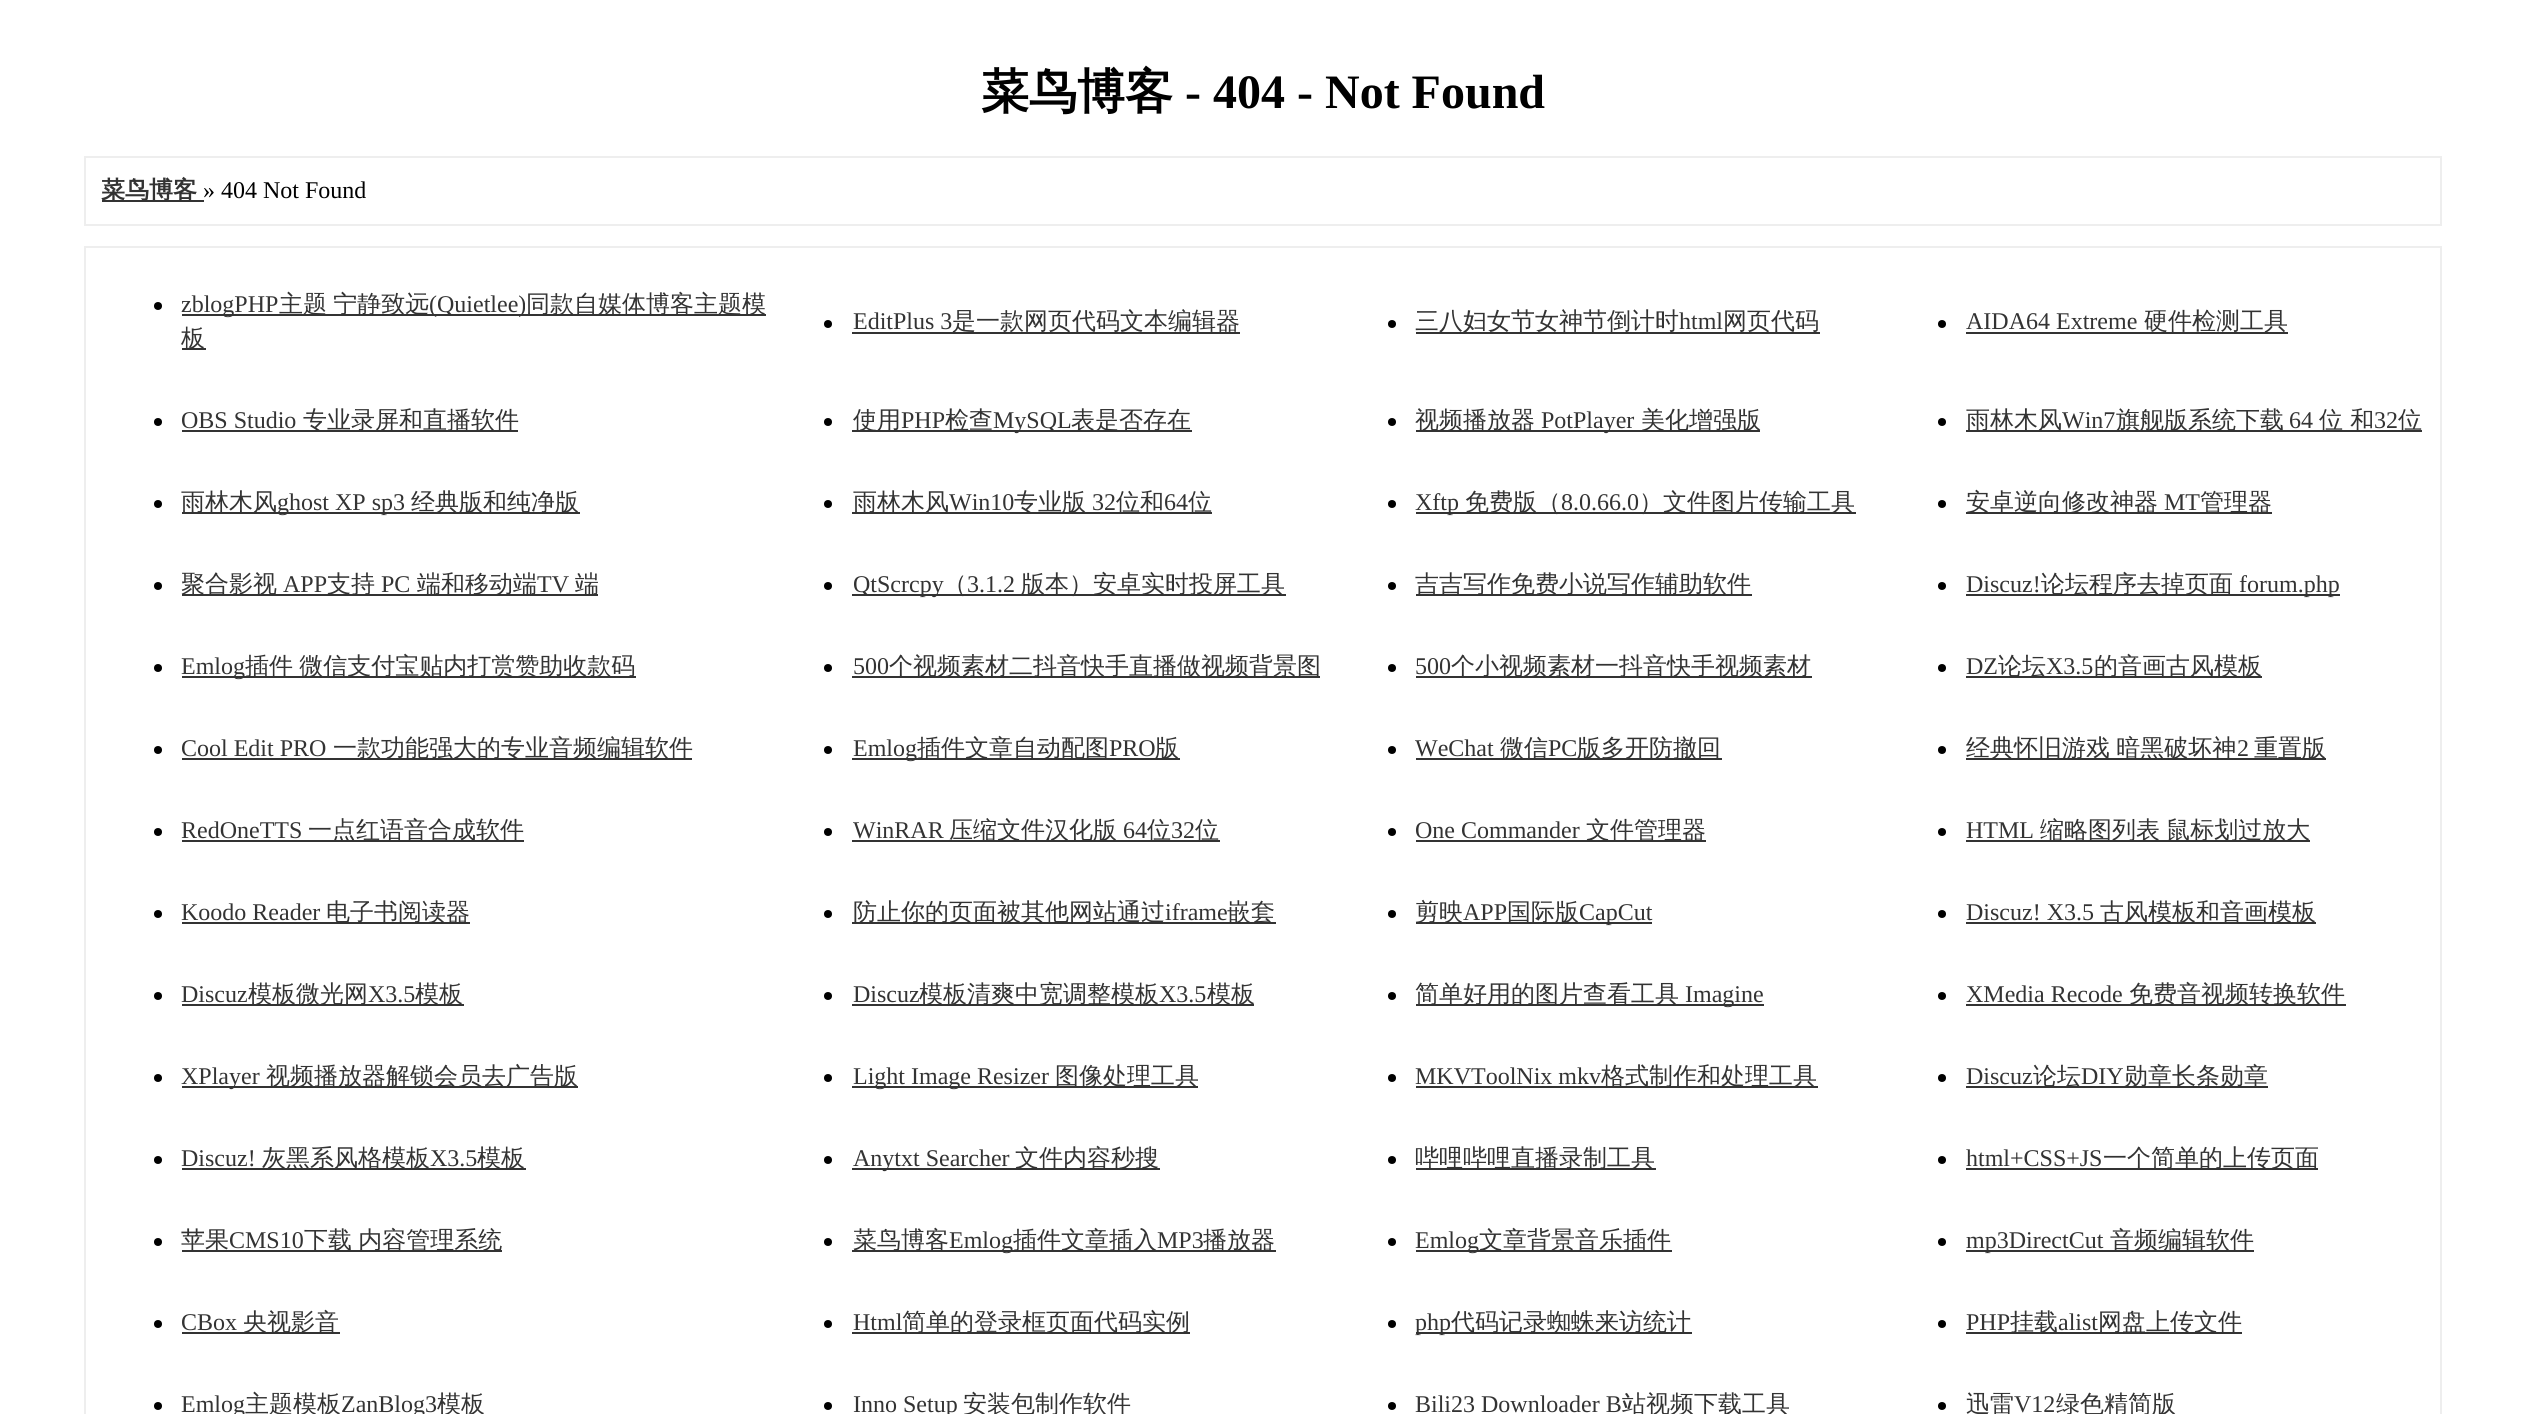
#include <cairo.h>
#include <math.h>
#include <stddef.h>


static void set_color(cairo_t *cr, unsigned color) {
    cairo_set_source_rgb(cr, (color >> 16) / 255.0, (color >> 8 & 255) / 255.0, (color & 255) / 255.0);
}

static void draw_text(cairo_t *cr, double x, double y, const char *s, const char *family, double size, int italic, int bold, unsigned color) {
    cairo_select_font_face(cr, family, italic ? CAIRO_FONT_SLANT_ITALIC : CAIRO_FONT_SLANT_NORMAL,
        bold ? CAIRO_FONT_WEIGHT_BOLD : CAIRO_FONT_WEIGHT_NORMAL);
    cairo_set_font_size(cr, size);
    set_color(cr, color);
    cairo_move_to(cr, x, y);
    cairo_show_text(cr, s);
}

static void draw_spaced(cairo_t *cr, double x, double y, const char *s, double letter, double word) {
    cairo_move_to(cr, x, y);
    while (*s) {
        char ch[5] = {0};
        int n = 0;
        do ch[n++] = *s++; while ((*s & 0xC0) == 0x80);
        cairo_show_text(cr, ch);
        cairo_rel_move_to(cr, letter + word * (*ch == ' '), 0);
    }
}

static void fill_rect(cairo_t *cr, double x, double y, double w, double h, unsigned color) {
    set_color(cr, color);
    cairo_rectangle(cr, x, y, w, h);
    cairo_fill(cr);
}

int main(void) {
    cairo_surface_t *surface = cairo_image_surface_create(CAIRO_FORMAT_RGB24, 2525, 1414);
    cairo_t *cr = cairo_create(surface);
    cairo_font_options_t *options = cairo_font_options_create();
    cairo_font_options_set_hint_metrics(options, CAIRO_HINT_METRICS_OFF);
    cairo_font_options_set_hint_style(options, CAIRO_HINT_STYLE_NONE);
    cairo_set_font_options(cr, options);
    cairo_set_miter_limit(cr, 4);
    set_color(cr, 0xFFFFFF);
    cairo_paint(cr);
    draw_text(cr, 981, 108, "菜鸟博客", "WenQuanYi Zen Hei", 48, 0, 1, 0x000000);
    draw_text(cr, 1185, 108, "- 404 - Not Found", "Liberation Serif", 48, 0, 1, 0x000000);
    cairo_rectangle(cr, 85, 157, 2356, 68);
    set_color(cr, 0xEEEEEE);
    cairo_stroke(cr);
    fill_rect(cr, 102, 200, 102, 2, 0x333333);
    draw_text(cr, 101, 198, "菜鸟博客", "WenQuanYi Zen Hei", 24, 0, 1, 0x333333);
    draw_text(cr, 203, 198, "» 404 Not Found", "Liberation Serif", 24, 0, 0, 0x000000);
    cairo_rectangle(cr, 85, 247, 2356, 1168);
    set_color(cr, 0xEEEEEE);
    cairo_stroke(cr);
    set_color(cr, 0x000000);
    cairo_arc(cr, 158, 306, 4, 0, 2 * M_PI);
    cairo_fill(cr);
    fill_rect(cr, 182, 314, 584, 2, 0x333333);
    draw_text(cr, 181, 312, "zblogPHP", "Liberation Serif", 24, 0, 0, 0x333333);
    cairo_select_font_face(cr, "WenQuanYi Zen Hei Medium", CAIRO_FONT_SLANT_NORMAL, CAIRO_FONT_WEIGHT_NORMAL);
    draw_spaced(cr, 279, 312, "主题 宁静致远", 0, -1);
    draw_text(cr, 429, 312, "(Quietlee)", "Liberation Serif", 24, 0, 0, 0x333333);
    draw_text(cr, 526, 312, "同款自媒体博客主题模", "WenQuanYi Zen Hei Medium", 24, 0, 0, 0x333333);
    fill_rect(cr, 182, 348, 24, 2, 0x333333);
    draw_text(cr, 181, 346, "板", "WenQuanYi Zen Hei Medium", 24, 0, 0, 0x333333);
    set_color(cr, 0x000000);
    cairo_new_path(cr);
    cairo_arc(cr, 828, 324, 4, 0, 2 * M_PI);
    cairo_fill(cr);
    draw_text(cr, 853, 329, "EditPlus 3", "Liberation Serif", 24, 0, 0, 0x333333);
    fill_rect(cr, 852, 332, 388, 2, 0x333333);
    draw_text(cr, 952, 329, "是一款网页代码文本编辑器", "WenQuanYi Zen Hei Medium", 24, 0, 0, 0x333333);
    set_color(cr, 0x000000);
    cairo_new_path(cr);
    cairo_arc(cr, 1392, 324, 4, 0, 2 * M_PI);
    cairo_fill(cr);
    fill_rect(cr, 1416, 332, 404, 2, 0x333333);
    draw_text(cr, 1415, 329, "三八妇女节女神节倒计时", "WenQuanYi Zen Hei Medium", 24, 0, 0, 0x333333);
    draw_text(cr, 1679, 329, "html", "Liberation Serif", 24, 0, 0, 0x333333);
    draw_text(cr, 1723, 329, "网页代码", "WenQuanYi Zen Hei Medium", 24, 0, 0, 0x333333);
    set_color(cr, 0x000000);
    cairo_new_path(cr);
    cairo_arc(cr, 1942, 324, 4, 0, 2 * M_PI);
    cairo_fill(cr);
    draw_text(cr, 1966, 329, "AIDA64 Extreme", "Liberation Serif", 24, 0, 0, 0x333333);
    fill_rect(cr, 1966, 332, 322, 2, 0x333333);
    draw_text(cr, 2144, 329, "硬件检测工具", "WenQuanYi Zen Hei Medium", 24, 0, 0, 0x333333);
    set_color(cr, 0x000000);
    cairo_new_path(cr);
    cairo_arc(cr, 158, 422, 4, 0, 2 * M_PI);
    cairo_fill(cr);
    draw_text(cr, 181, 428, "OBS Studio", "Liberation Serif", 24, 0, 0, 0x333333);
    fill_rect(cr, 182, 430, 336, 2, 0x333333);
    draw_text(cr, 303, 428, "专业录屏和直播软件", "WenQuanYi Zen Hei Medium", 24, 0, 0, 0x333333);
    set_color(cr, 0x000000);
    cairo_new_path(cr);
    cairo_arc(cr, 828, 422, 4, 0, 2 * M_PI);
    cairo_fill(cr);
    fill_rect(cr, 852, 430, 340, 2, 0x333333);
    draw_text(cr, 853, 428, "使用", "WenQuanYi Zen Hei Medium", 24, 0, 0, 0x333333);
    draw_text(cr, 901, 428, "PHP", "Liberation Serif", 24, 0, 0, 0x333333);
    draw_text(cr, 945, 428, "检查", "WenQuanYi Zen Hei Medium", 24, 0, 0, 0x333333);
    draw_text(cr, 993, 428, "MySQL", "Liberation Serif", 24, 0, 0, 0x333333);
    draw_text(cr, 1071, 428, "表是否存在", "WenQuanYi Zen Hei Medium", 24, 0, 0, 0x333333);
    set_color(cr, 0x000000);
    cairo_new_path(cr);
    cairo_arc(cr, 1392, 422, 4, 0, 2 * M_PI);
    cairo_fill(cr);
    fill_rect(cr, 1416, 430, 344, 2, 0x333333);
    draw_text(cr, 1415, 428, "视频播放器", "WenQuanYi Zen Hei Medium", 24, 0, 0, 0x333333);
    draw_text(cr, 1541, 428, "PotPlayer", "Liberation Serif", 24, 0, 0, 0x333333);
    draw_text(cr, 1641, 428, "美化增强版", "WenQuanYi Zen Hei Medium", 24, 0, 0, 0x333333);
    set_color(cr, 0x000000);
    cairo_new_path(cr);
    cairo_arc(cr, 1942, 422, 4, 0, 2 * M_PI);
    cairo_fill(cr);
    fill_rect(cr, 1966, 430, 456, 2, 0x333333);
    draw_text(cr, 1966, 428, "雨林木风", "WenQuanYi Zen Hei Medium", 24, 0, 0, 0x333333);
    draw_text(cr, 2062, 428, "Win7", "Liberation Serif", 24, 0, 0, 0x333333);
    draw_text(cr, 2116, 428, "旗舰版系统下载", "WenQuanYi Zen Hei Medium", 24, 0, 0, 0x333333);
    draw_text(cr, 2289, 428, "64", "Liberation Serif", 24, 0, 0, 0x333333);
    draw_text(cr, 2319, 428, "位 和", "WenQuanYi Zen Hei Medium", 24, 0, 0, 0x333333);
    draw_text(cr, 2374, 428, "32", "Liberation Serif", 24, 0, 0, 0x333333);
    draw_text(cr, 2398, 428, "位", "WenQuanYi Zen Hei Medium", 24, 0, 0, 0x333333);
    set_color(cr, 0x000000);
    cairo_new_path(cr);
    cairo_arc(cr, 158, 504, 4, 0, 2 * M_PI);
    cairo_fill(cr);
    fill_rect(cr, 182, 512, 398, 2, 0x333333);
    draw_text(cr, 181, 510, "雨林木风", "WenQuanYi Zen Hei Medium", 24, 0, 0, 0x333333);
    draw_text(cr, 277, 510, "ghost XP sp3", "Liberation Serif", 24, 0, 0, 0x333333);
    draw_text(cr, 411, 510, "经典版和纯净版", "WenQuanYi Zen Hei Medium", 24, 0, 0, 0x333333);
    set_color(cr, 0x000000);
    cairo_new_path(cr);
    cairo_arc(cr, 828, 504, 4, 0, 2 * M_PI);
    cairo_fill(cr);
    fill_rect(cr, 852, 512, 360, 2, 0x333333);
    draw_text(cr, 853, 510, "雨林木风", "WenQuanYi Zen Hei Medium", 24, 0, 0, 0x333333);
    draw_text(cr, 949, 510, "Win10", "Liberation Serif", 24, 0, 0, 0x333333);
    draw_text(cr, 1014, 510, "专业版", "WenQuanYi Zen Hei Medium", 24, 0, 0, 0x333333);
    draw_text(cr, 1092, 510, "32", "Liberation Serif", 24, 0, 0, 0x333333);
    draw_text(cr, 1116, 510, "位和", "WenQuanYi Zen Hei Medium", 24, 0, 0, 0x333333);
    draw_text(cr, 1164, 510, "64", "Liberation Serif", 24, 0, 0, 0x333333);
    draw_text(cr, 1188, 510, "位", "WenQuanYi Zen Hei Medium", 24, 0, 0, 0x333333);
    set_color(cr, 0x000000);
    cairo_new_path(cr);
    cairo_arc(cr, 1392, 504, 4, 0, 2 * M_PI);
    cairo_fill(cr);
    fill_rect(cr, 1416, 512, 440, 2, 0x333333);
    draw_text(cr, 1415, 510, "Xftp", "Liberation Serif", 24, 0, 0, 0x333333);
    draw_text(cr, 1465, 510, "免费版（", "WenQuanYi Zen Hei Medium", 24, 0, 0, 0x333333);
    draw_text(cr, 1561, 510, "8.0.66.0", "Liberation Serif", 24, 0, 0, 0x333333);
    draw_text(cr, 1639, 510, "）文件图片传输工具", "WenQuanYi Zen Hei Medium", 24, 0, 0, 0x333333);
    set_color(cr, 0x000000);
    cairo_new_path(cr);
    cairo_arc(cr, 1942, 504, 4, 0, 2 * M_PI);
    cairo_fill(cr);
    fill_rect(cr, 1966, 512, 306, 2, 0x333333);
    draw_text(cr, 1966, 510, "安卓逆向修改神器", "WenQuanYi Zen Hei Medium", 24, 0, 0, 0x333333);
    draw_text(cr, 2164, 510, "MT", "Liberation Serif", 24, 0, 0, 0x333333);
    draw_text(cr, 2200, 510, "管理器", "WenQuanYi Zen Hei Medium", 24, 0, 0, 0x333333);
    set_color(cr, 0x000000);
    cairo_new_path(cr);
    cairo_arc(cr, 158, 586, 4, 0, 2 * M_PI);
    cairo_fill(cr);
    fill_rect(cr, 182, 594, 416, 2, 0x333333);
    draw_text(cr, 181, 592, "聚合影视", "WenQuanYi Zen Hei Medium", 24, 0, 0, 0x333333);
    draw_text(cr, 283, 592, "APP", "Liberation Serif", 24, 0, 0, 0x333333);
    draw_text(cr, 327, 592, "支持", "WenQuanYi Zen Hei Medium", 24, 0, 0, 0x333333);
    draw_text(cr, 381, 592, "PC", "Liberation Serif", 24, 0, 0, 0x333333);
    draw_text(cr, 417, 592, "端和移动端", "WenQuanYi Zen Hei Medium", 24, 0, 0, 0x333333);
    draw_text(cr, 537, 592, "TV", "Liberation Serif", 24, 0, 0, 0x333333);
    draw_text(cr, 575, 592, "端", "WenQuanYi Zen Hei Medium", 24, 0, 0, 0x333333);
    set_color(cr, 0x000000);
    cairo_new_path(cr);
    cairo_arc(cr, 828, 586, 4, 0, 2 * M_PI);
    cairo_fill(cr);
    fill_rect(cr, 852, 594, 434, 2, 0x333333);
    draw_text(cr, 853, 592, "QtScrcpy", "Liberation Serif", 24, 0, 0, 0x333333);
    draw_text(cr, 943, 592, "（", "WenQuanYi Zen Hei Medium", 24, 0, 0, 0x333333);
    draw_text(cr, 967, 592, "3.1.2", "Liberation Serif", 24, 0, 0, 0x333333);
    draw_text(cr, 1021, 592, "版本）安卓实时投屏工具", "WenQuanYi Zen Hei Medium", 24, 0, 0, 0x333333);
    set_color(cr, 0x000000);
    cairo_new_path(cr);
    cairo_arc(cr, 1392, 586, 4, 0, 2 * M_PI);
    cairo_fill(cr);
    fill_rect(cr, 1416, 594, 336, 2, 0x333333);
    draw_text(cr, 1415, 592, "吉吉写作免费小说写作辅助软件", "WenQuanYi Zen Hei Medium", 24, 0, 0, 0x333333);
    set_color(cr, 0x000000);
    cairo_new_path(cr);
    cairo_arc(cr, 1942, 586, 4, 0, 2 * M_PI);
    cairo_fill(cr);
    draw_text(cr, 1966, 592, "Discuz!", "Liberation Serif", 24, 0, 0, 0x333333);
    fill_rect(cr, 1966, 594, 374, 2, 0x333333);
    draw_text(cr, 2041, 592, "论坛程序去掉页面", "WenQuanYi Zen Hei Medium", 24, 0, 0, 0x333333);
    draw_text(cr, 2239, 592, "forum.php", "Liberation Serif", 24, 0, 0, 0x333333);
    set_color(cr, 0x000000);
    cairo_new_path(cr);
    cairo_arc(cr, 158, 668, 4, 0, 2 * M_PI);
    cairo_fill(cr);
    fill_rect(cr, 182, 676, 454, 2, 0x333333);
    draw_text(cr, 181, 674, "Emlog", "Liberation Serif", 24, 0, 0, 0x333333);
    cairo_select_font_face(cr, "WenQuanYi Zen Hei Medium", CAIRO_FONT_SLANT_NORMAL, CAIRO_FONT_WEIGHT_NORMAL);
    draw_spaced(cr, 245, 674, "插件 微信支付宝贴内打赏赞助收款码", 0, -1);
    set_color(cr, 0x000000);
    cairo_new_path(cr);
    cairo_arc(cr, 828, 668, 4, 0, 2 * M_PI);
    cairo_fill(cr);
    draw_text(cr, 853, 674, "500", "Liberation Serif", 24, 0, 0, 0x333333);
    fill_rect(cr, 852, 676, 468, 2, 0x333333);
    draw_text(cr, 889, 674, "个视频素材二抖音快手直播做视频背景图", "WenQuanYi Zen Hei Medium", 24, 0, 0, 0x333333);
    set_color(cr, 0x000000);
    cairo_new_path(cr);
    cairo_arc(cr, 1392, 668, 4, 0, 2 * M_PI);
    cairo_fill(cr);
    draw_text(cr, 1415, 674, "500", "Liberation Serif", 24, 0, 0, 0x333333);
    fill_rect(cr, 1416, 676, 396, 2, 0x333333);
    draw_text(cr, 1451, 674, "个小视频素材一抖音快手视频素材", "WenQuanYi Zen Hei Medium", 24, 0, 0, 0x333333);
    set_color(cr, 0x000000);
    cairo_new_path(cr);
    cairo_arc(cr, 1942, 668, 4, 0, 2 * M_PI);
    cairo_fill(cr);
    draw_text(cr, 1966, 674, "DZ", "Liberation Serif", 24, 0, 0, 0x333333);
    fill_rect(cr, 1966, 676, 296, 2, 0x333333);
    draw_text(cr, 1998, 674, "论坛", "WenQuanYi Zen Hei Medium", 24, 0, 0, 0x333333);
    draw_text(cr, 2046, 674, "X3.5", "Liberation Serif", 24, 0, 0, 0x333333);
    draw_text(cr, 2094, 674, "的音画古风模板", "WenQuanYi Zen Hei Medium", 24, 0, 0, 0x333333);
    set_color(cr, 0x000000);
    cairo_new_path(cr);
    cairo_arc(cr, 158, 750, 4, 0, 2 * M_PI);
    cairo_fill(cr);
    draw_text(cr, 181, 756, "Cool Edit PRO", "Liberation Serif", 24, 0, 0, 0x333333);
    fill_rect(cr, 182, 758, 510, 2, 0x333333);
    draw_text(cr, 333, 756, "一款功能强大的专业音频编辑软件", "WenQuanYi Zen Hei Medium", 24, 0, 0, 0x333333);
    set_color(cr, 0x000000);
    cairo_new_path(cr);
    cairo_arc(cr, 828, 750, 4, 0, 2 * M_PI);
    cairo_fill(cr);
    fill_rect(cr, 852, 758, 328, 2, 0x333333);
    draw_text(cr, 853, 756, "Emlog", "Liberation Serif", 24, 0, 0, 0x333333);
    draw_text(cr, 917, 756, "插件文章自动配图", "WenQuanYi Zen Hei Medium", 24, 0, 0, 0x333333);
    draw_text(cr, 1109, 756, "PRO", "Liberation Serif", 24, 0, 0, 0x333333);
    draw_text(cr, 1155, 756, "版", "WenQuanYi Zen Hei Medium", 24, 0, 0, 0x333333);
    set_color(cr, 0x000000);
    cairo_new_path(cr);
    cairo_arc(cr, 1392, 750, 4, 0, 2 * M_PI);
    cairo_fill(cr);
    draw_text(cr, 1415, 756, "WeChat", "Liberation Serif", 24, 0, 0, 0x333333);
    fill_rect(cr, 1416, 758, 306, 2, 0x333333);
    draw_text(cr, 1500, 756, "微信", "WenQuanYi Zen Hei Medium", 24, 0, 0, 0x333333);
    draw_text(cr, 1548, 756, "PC", "Liberation Serif", 24, 0, 0, 0x333333);
    draw_text(cr, 1577, 756, "版多开防撤回", "WenQuanYi Zen Hei Medium", 24, 0, 0, 0x333333);
    set_color(cr, 0x000000);
    cairo_new_path(cr);
    cairo_arc(cr, 1942, 750, 4, 0, 2 * M_PI);
    cairo_fill(cr);
    fill_rect(cr, 1966, 758, 360, 2, 0x333333);
    draw_spaced(cr, 1966, 756, "经典怀旧游戏 暗黑破坏神", 0, -1);
    draw_text(cr, 2237, 756, "2", "Liberation Serif", 24, 0, 0, 0x333333);
    draw_text(cr, 2254, 756, "重置版", "WenQuanYi Zen Hei Medium", 24, 0, 0, 0x333333);
    set_color(cr, 0x000000);
    cairo_new_path(cr);
    cairo_arc(cr, 158, 832, 4, 0, 2 * M_PI);
    cairo_fill(cr);
    draw_text(cr, 181, 838, "RedOneTTS", "Liberation Serif", 24, 0, 0, 0x333333);
    fill_rect(cr, 182, 840, 342, 2, 0x333333);
    draw_text(cr, 308, 838, "一点红语音合成软件", "WenQuanYi Zen Hei Medium", 24, 0, 0, 0x333333);
    set_color(cr, 0x000000);
    cairo_new_path(cr);
    cairo_arc(cr, 828, 832, 4, 0, 2 * M_PI);
    cairo_fill(cr);
    draw_text(cr, 853, 838, "WinRAR", "Liberation Serif", 24, 0, 0, 0x333333);
    fill_rect(cr, 852, 840, 368, 2, 0x333333);
    draw_text(cr, 949, 838, "压缩文件汉化版", "WenQuanYi Zen Hei Medium", 24, 0, 0, 0x333333);
    draw_text(cr, 1123, 838, "64", "Liberation Serif", 24, 0, 0, 0x333333);
    draw_text(cr, 1147, 838, "位", "WenQuanYi Zen Hei Medium", 24, 0, 0, 0x333333);
    draw_text(cr, 1171, 838, "32", "Liberation Serif", 24, 0, 0, 0x333333);
    draw_text(cr, 1195, 838, "位", "WenQuanYi Zen Hei Medium", 24, 0, 0, 0x333333);
    set_color(cr, 0x000000);
    cairo_new_path(cr);
    cairo_arc(cr, 1392, 832, 4, 0, 2 * M_PI);
    cairo_fill(cr);
    draw_text(cr, 1415, 838, "One Commander", "Liberation Serif", 24, 0, 0, 0x333333);
    fill_rect(cr, 1416, 840, 290, 2, 0x333333);
    draw_text(cr, 1586, 838, "文件管理器", "WenQuanYi Zen Hei Medium", 24, 0, 0, 0x333333);
    set_color(cr, 0x000000);
    cairo_new_path(cr);
    cairo_arc(cr, 1942, 832, 4, 0, 2 * M_PI);
    cairo_fill(cr);
    draw_text(cr, 1966, 838, "HTML", "Liberation Serif", 24, 0, 0, 0x333333);
    fill_rect(cr, 1966, 840, 344, 2, 0x333333);
    cairo_select_font_face(cr, "WenQuanYi Zen Hei Medium", CAIRO_FONT_SLANT_NORMAL, CAIRO_FONT_WEIGHT_NORMAL);
    draw_spaced(cr, 2040, 838, "缩略图列表 鼠标划过放大", 0, -1);
    set_color(cr, 0x000000);
    cairo_new_path(cr);
    cairo_arc(cr, 158, 914, 4, 0, 2 * M_PI);
    cairo_fill(cr);
    draw_text(cr, 181, 920, "Koodo Reader", "Liberation Serif", 24, 0, 0, 0x333333);
    fill_rect(cr, 182, 922, 288, 2, 0x333333);
    draw_text(cr, 326, 920, "电子书阅读器", "WenQuanYi Zen Hei Medium", 24, 0, 0, 0x333333);
    set_color(cr, 0x000000);
    cairo_new_path(cr);
    cairo_arc(cr, 828, 914, 4, 0, 2 * M_PI);
    cairo_fill(cr);
    fill_rect(cr, 852, 922, 424, 2, 0x333333);
    draw_text(cr, 853, 920, "防止你的页面被其他网站通过", "WenQuanYi Zen Hei Medium", 24, 0, 0, 0x333333);
    draw_text(cr, 1165, 920, "iframe", "Liberation Serif", 24, 0, 0, 0x333333);
    draw_text(cr, 1227, 920, "嵌套", "WenQuanYi Zen Hei Medium", 24, 0, 0, 0x333333);
    set_color(cr, 0x000000);
    cairo_new_path(cr);
    cairo_arc(cr, 1392, 914, 4, 0, 2 * M_PI);
    cairo_fill(cr);
    fill_rect(cr, 1416, 922, 236, 2, 0x333333);
    draw_text(cr, 1415, 920, "剪映", "WenQuanYi Zen Hei Medium", 24, 0, 0, 0x333333);
    draw_text(cr, 1463, 920, "APP", "Liberation Serif", 24, 0, 0, 0x333333);
    draw_text(cr, 1507, 920, "国际版", "WenQuanYi Zen Hei Medium", 24, 0, 0, 0x333333);
    draw_text(cr, 1579, 920, "CapCut", "Liberation Serif", 24, 0, 0, 0x333333);
    set_color(cr, 0x000000);
    cairo_new_path(cr);
    cairo_arc(cr, 1942, 914, 4, 0, 2 * M_PI);
    cairo_fill(cr);
    draw_text(cr, 1966, 920, "Discuz! X3.5", "Liberation Serif", 24, 0, 0, 0x333333);
    fill_rect(cr, 1966, 922, 350, 2, 0x333333);
    draw_text(cr, 2100, 920, "古风模板和音画模板", "WenQuanYi Zen Hei Medium", 24, 0, 0, 0x333333);
    set_color(cr, 0x000000);
    cairo_new_path(cr);
    cairo_arc(cr, 158, 996, 4, 0, 2 * M_PI);
    cairo_fill(cr);
    draw_text(cr, 181, 1002, "Discuz", "Liberation Serif", 24, 0, 0, 0x333333);
    fill_rect(cr, 182, 1004, 282, 2, 0x333333);
    draw_text(cr, 248, 1002, "模板微光网", "WenQuanYi Zen Hei Medium", 24, 0, 0, 0x333333);
    draw_text(cr, 368, 1002, "X3.5", "Liberation Serif", 24, 0, 0, 0x333333);
    draw_text(cr, 415, 1002, "模板", "WenQuanYi Zen Hei Medium", 24, 0, 0, 0x333333);
    set_color(cr, 0x000000);
    cairo_new_path(cr);
    cairo_arc(cr, 828, 996, 4, 0, 2 * M_PI);
    cairo_fill(cr);
    draw_text(cr, 853, 1002, "Discuz", "Liberation Serif", 24, 0, 0, 0x333333);
    fill_rect(cr, 852, 1004, 402, 2, 0x333333);
    draw_text(cr, 919, 1002, "模板清爽中宽调整模板", "WenQuanYi Zen Hei Medium", 24, 0, 0, 0x333333);
    draw_text(cr, 1159, 1002, "X3.5", "Liberation Serif", 24, 0, 0, 0x333333);
    draw_text(cr, 1207, 1002, "模板", "WenQuanYi Zen Hei Medium", 24, 0, 0, 0x333333);
    set_color(cr, 0x000000);
    cairo_new_path(cr);
    cairo_arc(cr, 1392, 996, 4, 0, 2 * M_PI);
    cairo_fill(cr);
    fill_rect(cr, 1416, 1004, 348, 2, 0x333333);
    draw_text(cr, 1415, 1002, "简单好用的图片查看工具", "WenQuanYi Zen Hei Medium", 24, 0, 0, 0x333333);
    draw_text(cr, 1685, 1002, "Imagine", "Liberation Serif", 24, 0, 0, 0x333333);
    set_color(cr, 0x000000);
    cairo_new_path(cr);
    cairo_arc(cr, 1942, 996, 4, 0, 2 * M_PI);
    cairo_fill(cr);
    draw_text(cr, 1966, 1002, "XMedia Recode", "Liberation Serif", 24, 0, 0, 0x333333);
    fill_rect(cr, 1966, 1004, 380, 2, 0x333333);
    draw_text(cr, 2129, 1002, "免费音视频转换软件", "WenQuanYi Zen Hei Medium", 24, 0, 0, 0x333333);
    set_color(cr, 0x000000);
    cairo_new_path(cr);
    cairo_arc(cr, 158, 1078, 4, 0, 2 * M_PI);
    cairo_fill(cr);
    fill_rect(cr, 182, 1086, 396, 2, 0x333333);
    draw_text(cr, 181, 1084, "XPlayer", "Liberation Serif", 24, 0, 0, 0x333333);
    draw_text(cr, 266, 1084, "视频播放器解锁会员去广告版", "WenQuanYi Zen Hei Medium", 24, 0, 0, 0x333333);
    set_color(cr, 0x000000);
    cairo_new_path(cr);
    cairo_arc(cr, 828, 1078, 4, 0, 2 * M_PI);
    cairo_fill(cr);
    fill_rect(cr, 852, 1086, 346, 2, 0x333333);
    draw_text(cr, 853, 1084, "Light Image Resizer", "Liberation Serif", 24, 0, 0, 0x333333);
    draw_text(cr, 1055, 1084, "图像处理工具", "WenQuanYi Zen Hei Medium", 24, 0, 0, 0x333333);
    set_color(cr, 0x000000);
    cairo_new_path(cr);
    cairo_arc(cr, 1392, 1078, 4, 0, 2 * M_PI);
    cairo_fill(cr);
    draw_text(cr, 1415, 1084, "MKVToolNix mkv", "Liberation Serif", 24, 0, 0, 0x333333);
    fill_rect(cr, 1416, 1086, 402, 2, 0x333333);
    draw_text(cr, 1601, 1084, "格式制作和处理工具", "WenQuanYi Zen Hei Medium", 24, 0, 0, 0x333333);
    set_color(cr, 0x000000);
    cairo_new_path(cr);
    cairo_arc(cr, 1942, 1078, 4, 0, 2 * M_PI);
    cairo_fill(cr);
    draw_text(cr, 1966, 1084, "Discuz", "Liberation Serif", 24, 0, 0, 0x333333);
    fill_rect(cr, 1966, 1086, 302, 2, 0x333333);
    draw_text(cr, 2033, 1084, "论坛", "WenQuanYi Zen Hei Medium", 24, 0, 0, 0x333333);
    draw_text(cr, 2081, 1084, "DIY", "Liberation Serif", 24, 0, 0, 0x333333);
    draw_text(cr, 2124, 1084, "勋章长条勋章", "WenQuanYi Zen Hei Medium", 24, 0, 0, 0x333333);
    set_color(cr, 0x000000);
    cairo_new_path(cr);
    cairo_arc(cr, 158, 1160, 4, 0, 2 * M_PI);
    cairo_fill(cr);
    draw_text(cr, 181, 1166, "Discuz!", "Liberation Serif", 24, 0, 0, 0x333333);
    fill_rect(cr, 182, 1168, 344, 2, 0x333333);
    draw_text(cr, 262, 1166, "灰黑系风格模板", "WenQuanYi Zen Hei Medium", 24, 0, 0, 0x333333);
    draw_text(cr, 430, 1166, "X3.5", "Liberation Serif", 24, 0, 0, 0x333333);
    draw_text(cr, 477, 1166, "模板", "WenQuanYi Zen Hei Medium", 24, 0, 0, 0x333333);
    set_color(cr, 0x000000);
    cairo_new_path(cr);
    cairo_arc(cr, 828, 1160, 4, 0, 2 * M_PI);
    cairo_fill(cr);
    fill_rect(cr, 852, 1168, 308, 2, 0x333333);
    draw_text(cr, 853, 1166, "Anytxt Searcher", "Liberation Serif", 24, 0, 0, 0x333333);
    draw_text(cr, 1015, 1166, "文件内容秒搜", "WenQuanYi Zen Hei Medium", 24, 0, 0, 0x333333);
    set_color(cr, 0x000000);
    cairo_new_path(cr);
    cairo_arc(cr, 1392, 1160, 4, 0, 2 * M_PI);
    cairo_fill(cr);
    fill_rect(cr, 1416, 1168, 240, 2, 0x333333);
    draw_text(cr, 1415, 1166, "哔哩哔哩直播录制工具", "WenQuanYi Zen Hei Medium", 24, 0, 0, 0x333333);
    set_color(cr, 0x000000);
    cairo_new_path(cr);
    cairo_arc(cr, 1942, 1160, 4, 0, 2 * M_PI);
    cairo_fill(cr);
    draw_text(cr, 1966, 1166, "html+CSS+JS", "Liberation Serif", 24, 0, 0, 0x333333);
    fill_rect(cr, 1966, 1168, 352, 2, 0x333333);
    draw_text(cr, 2103, 1166, "一个简单的上传页面", "WenQuanYi Zen Hei Medium", 24, 0, 0, 0x333333);
    set_color(cr, 0x000000);
    cairo_new_path(cr);
    cairo_arc(cr, 158, 1242, 4, 0, 2 * M_PI);
    cairo_fill(cr);
    fill_rect(cr, 182, 1250, 320, 2, 0x333333);
    draw_text(cr, 181, 1248, "苹果", "WenQuanYi Zen Hei Medium", 24, 0, 0, 0x333333);
    draw_text(cr, 229, 1248, "CMS10", "Liberation Serif", 24, 0, 0, 0x333333);
    cairo_select_font_face(cr, "WenQuanYi Zen Hei Medium", CAIRO_FONT_SLANT_NORMAL, CAIRO_FONT_WEIGHT_NORMAL);
    draw_spaced(cr, 304, 1248, "下载 内容管理系统", 0, -1);
    set_color(cr, 0x000000);
    cairo_new_path(cr);
    cairo_arc(cr, 828, 1242, 4, 0, 2 * M_PI);
    cairo_fill(cr);
    fill_rect(cr, 852, 1250, 424, 2, 0x333333);
    draw_text(cr, 853, 1248, "菜鸟博客", "WenQuanYi Zen Hei Medium", 24, 0, 0, 0x333333);
    draw_text(cr, 949, 1248, "Emlog", "Liberation Serif", 24, 0, 0, 0x333333);
    draw_text(cr, 1013, 1248, "插件文章插入", "WenQuanYi Zen Hei Medium", 24, 0, 0, 0x333333);
    draw_text(cr, 1157, 1248, "MP3", "Liberation Serif", 24, 0, 0, 0x333333);
    draw_text(cr, 1203, 1248, "播放器", "WenQuanYi Zen Hei Medium", 24, 0, 0, 0x333333);
    set_color(cr, 0x000000);
    cairo_new_path(cr);
    cairo_arc(cr, 1392, 1242, 4, 0, 2 * M_PI);
    cairo_fill(cr);
    fill_rect(cr, 1416, 1250, 256, 2, 0x333333);
    draw_text(cr, 1415, 1248, "Emlog", "Liberation Serif", 24, 0, 0, 0x333333);
    draw_text(cr, 1479, 1248, "文章背景音乐插件", "WenQuanYi Zen Hei Medium", 24, 0, 0, 0x333333);
    set_color(cr, 0x000000);
    cairo_new_path(cr);
    cairo_arc(cr, 1942, 1242, 4, 0, 2 * M_PI);
    cairo_fill(cr);
    fill_rect(cr, 1966, 1250, 288, 2, 0x333333);
    draw_text(cr, 1966, 1248, "mp3DirectCut", "Liberation Serif", 24, 0, 0, 0x333333);
    draw_text(cr, 2110, 1248, "音频编辑软件", "WenQuanYi Zen Hei Medium", 24, 0, 0, 0x333333);
    set_color(cr, 0x000000);
    cairo_new_path(cr);
    cairo_arc(cr, 158, 1324, 4, 0, 2 * M_PI);
    cairo_fill(cr);
    draw_text(cr, 181, 1330, "CBox", "Liberation Serif", 24, 0, 0, 0x333333);
    fill_rect(cr, 182, 1332, 158, 2, 0x333333);
    draw_text(cr, 243, 1330, "央视影音", "WenQuanYi Zen Hei Medium", 24, 0, 0, 0x333333);
    set_color(cr, 0x000000);
    cairo_new_path(cr);
    cairo_arc(cr, 828, 1324, 4, 0, 2 * M_PI);
    cairo_fill(cr);
    draw_text(cr, 853, 1330, "Html", "Liberation Serif", 24, 0, 0, 0x333333);
    fill_rect(cr, 852, 1332, 338, 2, 0x333333);
    draw_text(cr, 902, 1330, "简单的登录框页面代码实例", "WenQuanYi Zen Hei Medium", 24, 0, 0, 0x333333);
    set_color(cr, 0x000000);
    cairo_new_path(cr);
    cairo_arc(cr, 1392, 1324, 4, 0, 2 * M_PI);
    cairo_fill(cr);
    fill_rect(cr, 1416, 1332, 276, 2, 0x333333);
    draw_text(cr, 1415, 1330, "php", "Liberation Serif", 24, 0, 0, 0x333333);
    draw_text(cr, 1451, 1330, "代码记录蜘蛛来访统计", "WenQuanYi Zen Hei Medium", 24, 0, 0, 0x333333);
    set_color(cr, 0x000000);
    cairo_new_path(cr);
    cairo_arc(cr, 1942, 1324, 4, 0, 2 * M_PI);
    cairo_fill(cr);
    draw_text(cr, 1966, 1330, "PHP", "Liberation Serif", 24, 0, 0, 0x333333);
    fill_rect(cr, 1966, 1332, 276, 2, 0x333333);
    draw_text(cr, 2010, 1330, "挂载", "WenQuanYi Zen Hei Medium", 24, 0, 0, 0x333333);
    draw_text(cr, 2058, 1330, "alist", "Liberation Serif", 24, 0, 0, 0x333333);
    draw_text(cr, 2098, 1330, "网盘上传文件", "WenQuanYi Zen Hei Medium", 24, 0, 0, 0x333333);
    set_color(cr, 0x000000);
    cairo_new_path(cr);
    cairo_arc(cr, 158, 1406, 4, 0, 2 * M_PI);
    cairo_fill(cr);
    draw_text(cr, 181, 1412, "Emlog", "Liberation Serif", 24, 0, 0, 0x333333);
    draw_text(cr, 245, 1412, "主题模板", "WenQuanYi Zen Hei Medium", 24, 0, 0, 0x333333);
    draw_text(cr, 341, 1412, "ZanBlog3", "Liberation Serif", 24, 0, 0, 0x333333);
    draw_text(cr, 437, 1412, "模板", "WenQuanYi Zen Hei Medium", 24, 0, 0, 0x333333);
    set_color(cr, 0x000000);
    cairo_new_path(cr);
    cairo_arc(cr, 828, 1406, 4, 0, 2 * M_PI);
    cairo_fill(cr);
    draw_text(cr, 853, 1412, "Inno Setup", "Liberation Serif", 24, 0, 0, 0x333333);
    draw_text(cr, 963, 1412, "安装包制作软件", "WenQuanYi Zen Hei Medium", 24, 0, 0, 0x333333);
    set_color(cr, 0x000000);
    cairo_new_path(cr);
    cairo_arc(cr, 1392, 1406, 4, 0, 2 * M_PI);
    cairo_fill(cr);
    draw_text(cr, 1415, 1412, "Bili23 Downloader B", "Liberation Serif", 24, 0, 0, 0x333333);
    draw_text(cr, 1622, 1412, "站视频下载工具", "WenQuanYi Zen Hei Medium", 24, 0, 0, 0x333333);
    set_color(cr, 0x000000);
    cairo_new_path(cr);
    cairo_arc(cr, 1942, 1406, 4, 0, 2 * M_PI);
    cairo_fill(cr);
    draw_text(cr, 1966, 1412, "迅雷", "WenQuanYi Zen Hei Medium", 24, 0, 0, 0x333333);
    draw_text(cr, 2014, 1412, "V12", "Liberation Serif", 24, 0, 0, 0x333333);
    draw_text(cr, 2056, 1412, "绿色精简版", "WenQuanYi Zen Hei Medium", 24, 0, 0, 0x333333);
    cairo_surface_write_to_png(surface, "output.png");
    cairo_font_options_destroy(options);
    cairo_destroy(cr);
    cairo_surface_destroy(surface);
    return 0;
}
